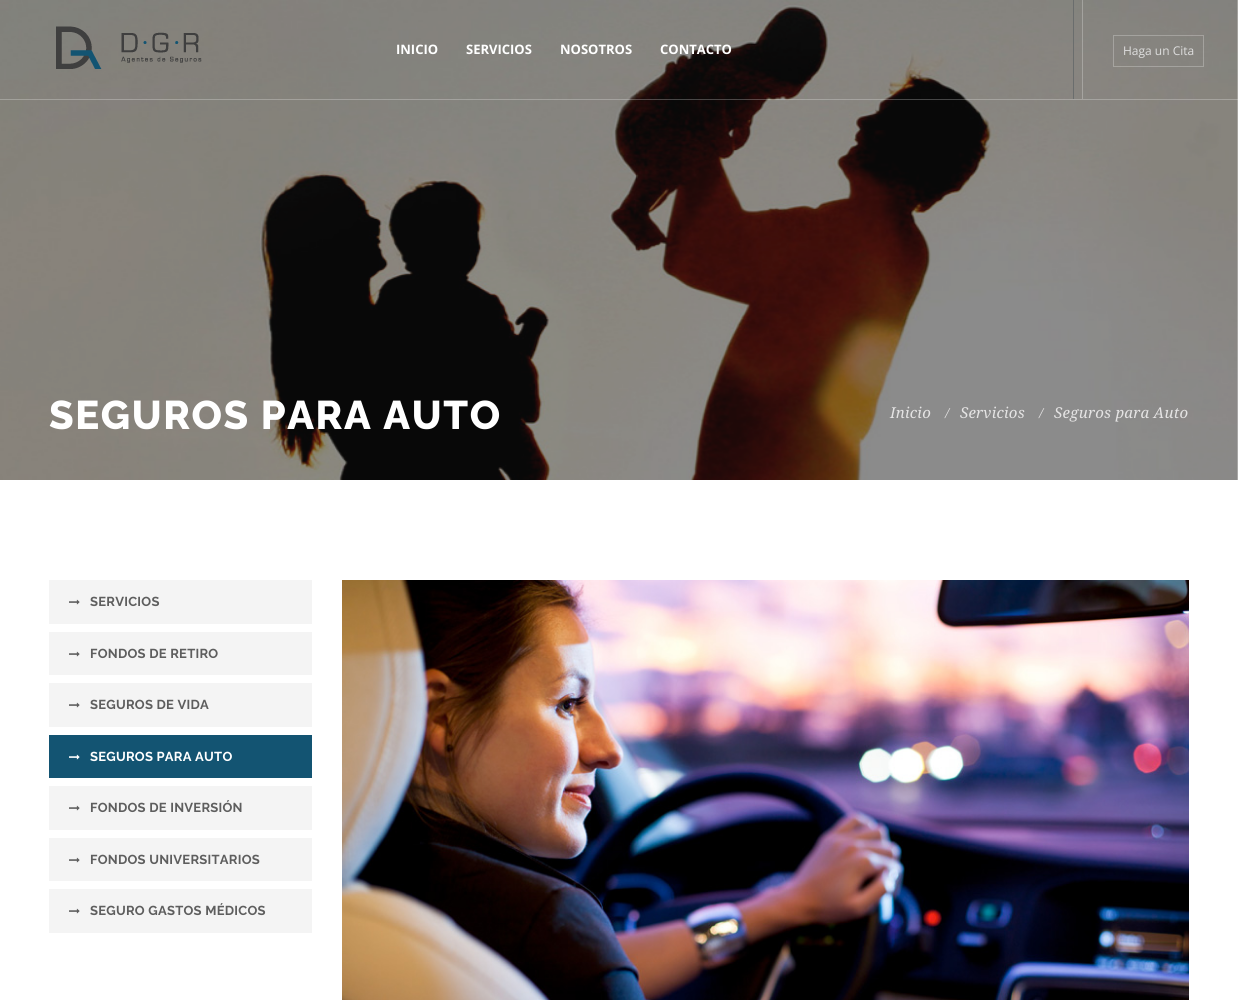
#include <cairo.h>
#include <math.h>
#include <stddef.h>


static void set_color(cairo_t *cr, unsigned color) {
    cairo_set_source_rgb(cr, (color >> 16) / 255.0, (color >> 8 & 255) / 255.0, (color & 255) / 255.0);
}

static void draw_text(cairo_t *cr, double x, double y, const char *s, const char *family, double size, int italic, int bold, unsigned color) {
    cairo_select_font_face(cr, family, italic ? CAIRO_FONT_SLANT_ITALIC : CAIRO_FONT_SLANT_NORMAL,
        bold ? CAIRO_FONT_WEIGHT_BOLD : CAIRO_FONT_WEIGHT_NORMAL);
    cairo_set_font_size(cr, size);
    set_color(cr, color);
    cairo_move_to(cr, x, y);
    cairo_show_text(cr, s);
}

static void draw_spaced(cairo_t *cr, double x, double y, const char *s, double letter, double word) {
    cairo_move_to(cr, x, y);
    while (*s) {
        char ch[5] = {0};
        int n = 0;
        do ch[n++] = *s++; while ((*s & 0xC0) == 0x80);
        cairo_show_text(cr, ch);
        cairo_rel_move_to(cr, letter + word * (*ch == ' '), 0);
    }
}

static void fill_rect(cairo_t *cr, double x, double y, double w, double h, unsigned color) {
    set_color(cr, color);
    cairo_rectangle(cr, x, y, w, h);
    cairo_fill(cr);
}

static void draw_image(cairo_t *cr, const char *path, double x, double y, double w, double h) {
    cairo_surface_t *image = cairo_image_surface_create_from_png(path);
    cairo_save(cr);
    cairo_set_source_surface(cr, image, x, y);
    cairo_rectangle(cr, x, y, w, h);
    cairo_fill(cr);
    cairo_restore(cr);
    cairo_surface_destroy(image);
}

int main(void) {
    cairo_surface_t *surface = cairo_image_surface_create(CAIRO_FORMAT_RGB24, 1238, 1000);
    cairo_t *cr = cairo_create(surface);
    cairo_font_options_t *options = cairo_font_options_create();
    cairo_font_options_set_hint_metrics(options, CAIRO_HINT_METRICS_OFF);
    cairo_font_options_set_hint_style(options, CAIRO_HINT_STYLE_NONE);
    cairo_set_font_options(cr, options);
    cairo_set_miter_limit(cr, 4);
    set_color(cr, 0xFFFFFF);
    cairo_paint(cr);
    draw_image(cr, "assets/img2.png", 0, 0, 1238, 480);
    cairo_set_source_rgba(cr, 1, 1, 1, 0.25);
    cairo_rectangle(cr, 0, 99, 1238, 1);
    cairo_fill(cr);
    fill_rect(cr, 1073, 0, 1, 99, 0x6A6D6D);
    draw_image(cr, "assets/img1.png", 56, 26, 146, 43);
    draw_text(cr, 396, 54, "INICIO", "Open Sans", 13, 0, 1, 0xFFFFFF);
    draw_text(cr, 466, 54, "SERVICIOS", "Open Sans", 13, 0, 1, 0xFFFFFF);
    draw_text(cr, 560, 54, "NOSOTROS", "Open Sans", 13, 0, 1, 0xFFFFFF);
    draw_text(cr, 660, 54, "CONTACTO", "Open Sans", 13, 0, 1, 0xFFFFFF);
    cairo_set_source_rgba(cr, 1, 1, 1, 0.25);
    cairo_rectangle(cr, 1082, 0, 1, 99);
    cairo_fill(cr);
    cairo_rectangle(cr, 1113.5, 35.5, 90, 31);
    cairo_set_line_width(cr, 1);
    cairo_stroke(cr);
    draw_text(cr, 1123, 55, "Haga un Cita", "Open Sans", 12, 0, 0, 0xDEDEDE);
    cairo_select_font_face(cr, "Raleway ExtraBold", CAIRO_FONT_SLANT_NORMAL, CAIRO_FONT_WEIGHT_NORMAL);
    cairo_set_font_size(cr, 40);
    set_color(cr, 0xFFFFFF);
    draw_spaced(cr, 49, 429, "SEGUROS PARA AUTO", 1.6, 0);
    cairo_select_font_face(cr, "Droid Serif", CAIRO_FONT_SLANT_ITALIC, CAIRO_FONT_WEIGHT_NORMAL);
    cairo_set_font_size(cr, 15);
    set_color(cr, 0xE5E4E4);
    draw_spaced(cr, 890, 418, "Inicio", 0.25, 0);
    cairo_select_font_face(cr, "Liberation Serif", CAIRO_FONT_SLANT_ITALIC, CAIRO_FONT_WEIGHT_NORMAL);
    draw_spaced(cr, 945, 418, "/", 0.25, 0);
    cairo_select_font_face(cr, "Droid Serif", CAIRO_FONT_SLANT_ITALIC, CAIRO_FONT_WEIGHT_NORMAL);
    draw_spaced(cr, 960, 418, "Servicios", 0.25, 0);
    cairo_select_font_face(cr, "Liberation Serif", CAIRO_FONT_SLANT_ITALIC, CAIRO_FONT_WEIGHT_NORMAL);
    draw_spaced(cr, 1039, 418, "/", 0.25, 0);
    cairo_select_font_face(cr, "Droid Serif", CAIRO_FONT_SLANT_ITALIC, CAIRO_FONT_WEIGHT_NORMAL);
    draw_spaced(cr, 1054, 418, "Seguros para Auto", 0.25, 0);
    fill_rect(cr, 49, 580, 263, 44, 0xF4F4F4);
    draw_image(cr, "assets/img3.png", 69, 599, 11, 6);
    cairo_select_font_face(cr, "Raleway", CAIRO_FONT_SLANT_NORMAL, CAIRO_FONT_WEIGHT_BOLD);
    cairo_set_font_size(cr, 13);
    set_color(cr, 0x5E5E5E);
    draw_spaced(cr, 90, 606, "SERVICIOS", 0.25, 0);
    fill_rect(cr, 49, 632, 263, 43, 0xF4F4F4);
    draw_image(cr, "assets/img3.png", 69, 651, 11, 6);
    set_color(cr, 0x5E5E5E);
    draw_spaced(cr, 90, 658, "FONDOS DE RETIRO", 0.25, 0);
    fill_rect(cr, 49, 683, 263, 44, 0xF4F4F4);
    draw_image(cr, "assets/img3.png", 69, 702, 11, 6);
    set_color(cr, 0x5E5E5E);
    draw_spaced(cr, 90, 709, "SEGUROS DE VIDA", 0.25, 0);
    fill_rect(cr, 49, 735, 263, 43, 0x135472);
    draw_image(cr, "assets/img4.png", 69, 754, 11, 6);
    set_color(cr, 0xFFFFFF);
    draw_spaced(cr, 90, 761, "SEGUROS PARA AUTO", 0.25, 0);
    fill_rect(cr, 49, 786, 263, 44, 0xF4F4F4);
    draw_image(cr, "assets/img3.png", 69, 805, 11, 6);
    set_color(cr, 0x5E5E5E);
    draw_spaced(cr, 90, 812, "FONDOS DE INVERSIÓN", 0.25, 0);
    fill_rect(cr, 49, 838, 263, 43, 0xF4F4F4);
    draw_image(cr, "assets/img3.png", 69, 857, 11, 6);
    set_color(cr, 0x5E5E5E);
    draw_spaced(cr, 90, 864, "FONDOS UNIVERSITARIOS", 0.25, 0);
    fill_rect(cr, 49, 889, 263, 44, 0xF4F4F4);
    draw_image(cr, "assets/img3.png", 69, 908, 11, 6);
    set_color(cr, 0x5E5E5E);
    draw_spaced(cr, 90, 915, "SEGURO GASTOS MÉDICOS", 0.25, 0);
    draw_image(cr, "assets/img5.png", 342, 580, 847, 420);
    cairo_surface_write_to_png(surface, "output.png");
    cairo_font_options_destroy(options);
    cairo_destroy(cr);
    cairo_surface_destroy(surface);
    return 0;
}
